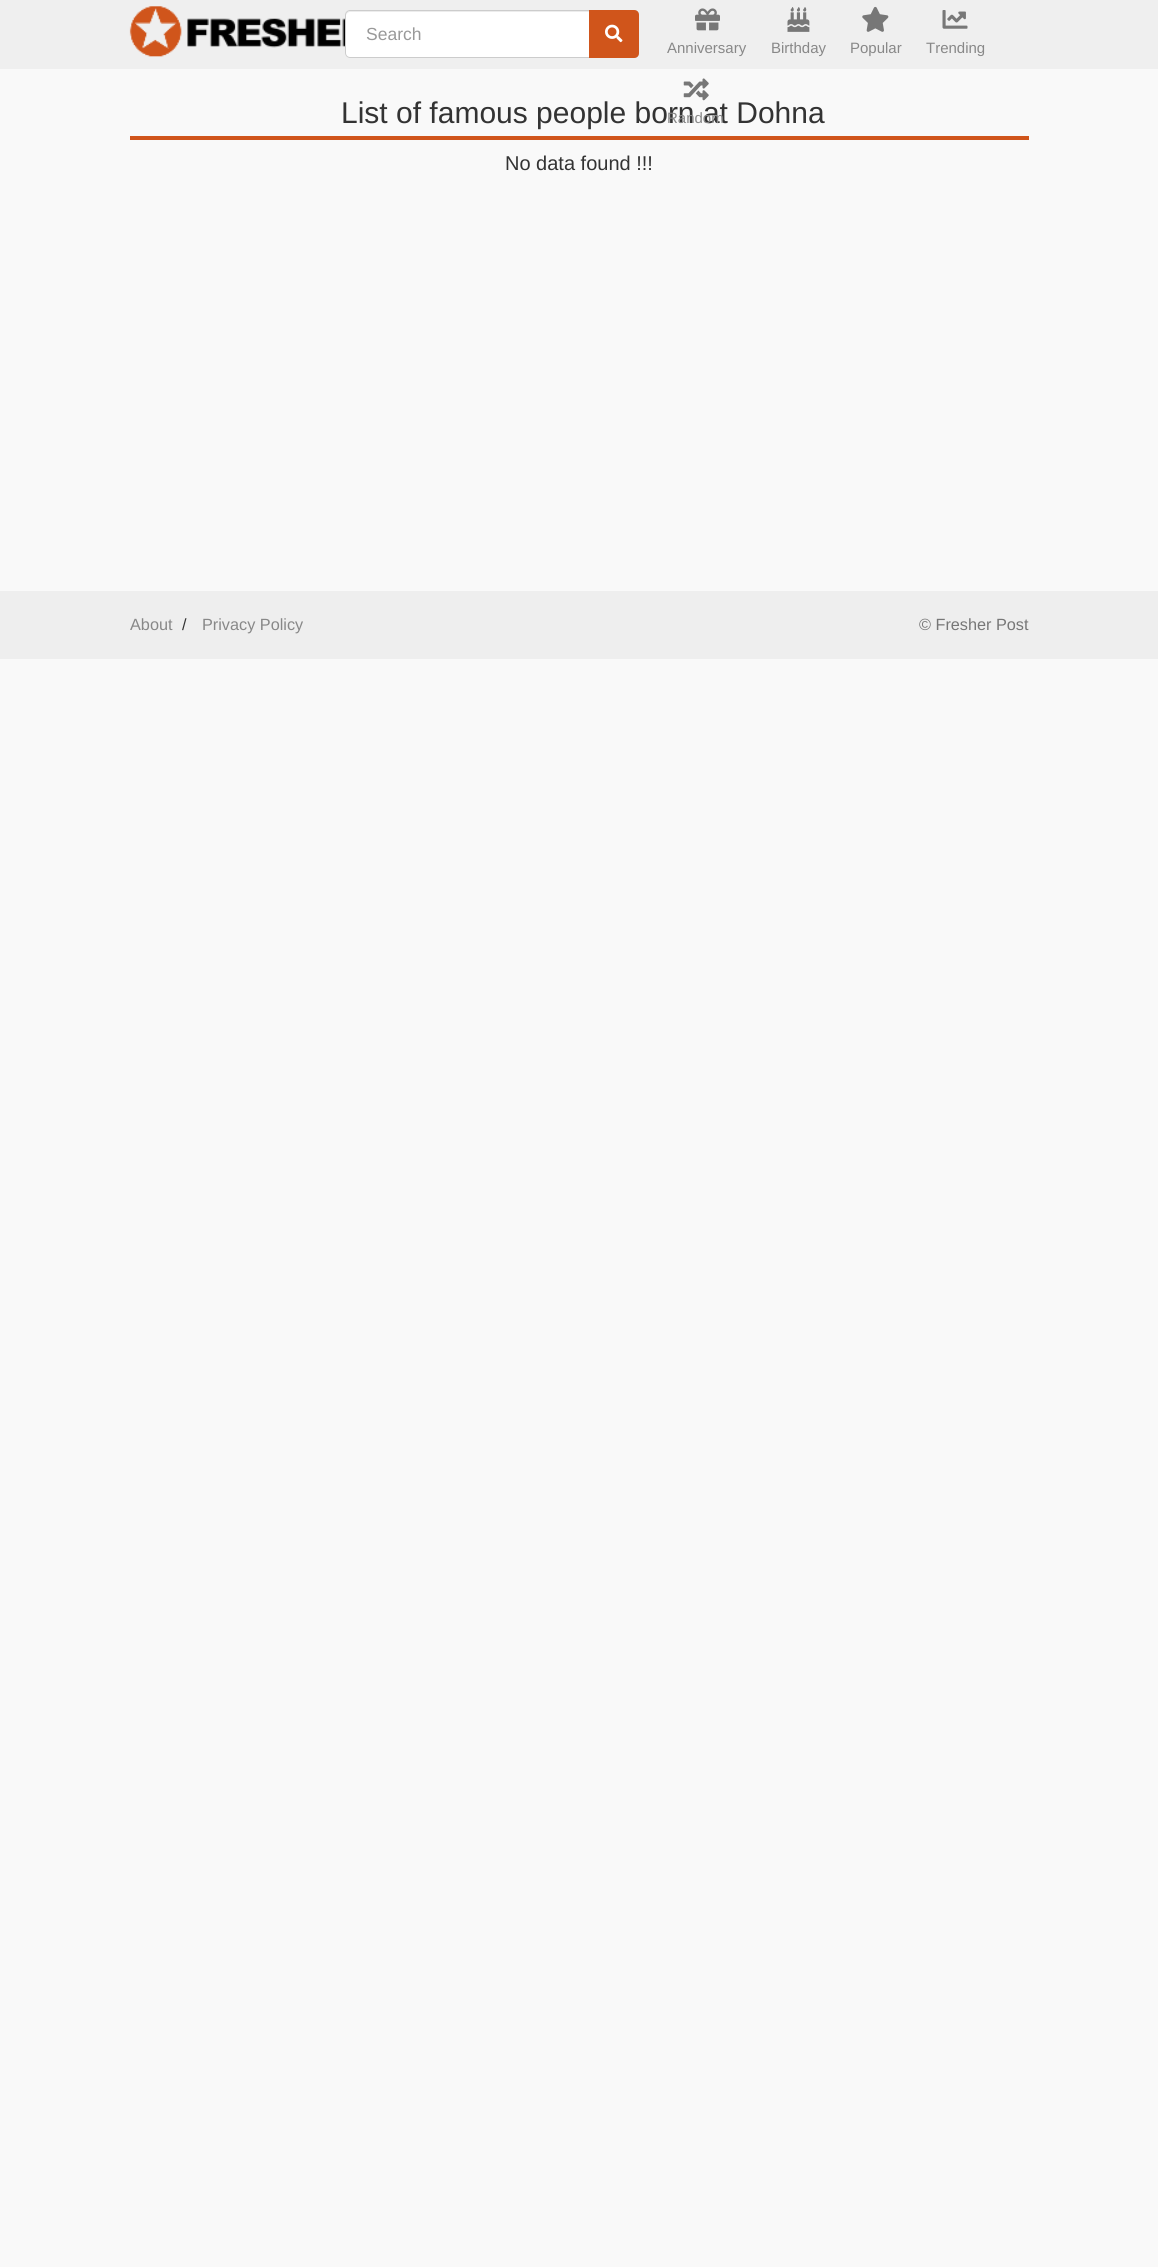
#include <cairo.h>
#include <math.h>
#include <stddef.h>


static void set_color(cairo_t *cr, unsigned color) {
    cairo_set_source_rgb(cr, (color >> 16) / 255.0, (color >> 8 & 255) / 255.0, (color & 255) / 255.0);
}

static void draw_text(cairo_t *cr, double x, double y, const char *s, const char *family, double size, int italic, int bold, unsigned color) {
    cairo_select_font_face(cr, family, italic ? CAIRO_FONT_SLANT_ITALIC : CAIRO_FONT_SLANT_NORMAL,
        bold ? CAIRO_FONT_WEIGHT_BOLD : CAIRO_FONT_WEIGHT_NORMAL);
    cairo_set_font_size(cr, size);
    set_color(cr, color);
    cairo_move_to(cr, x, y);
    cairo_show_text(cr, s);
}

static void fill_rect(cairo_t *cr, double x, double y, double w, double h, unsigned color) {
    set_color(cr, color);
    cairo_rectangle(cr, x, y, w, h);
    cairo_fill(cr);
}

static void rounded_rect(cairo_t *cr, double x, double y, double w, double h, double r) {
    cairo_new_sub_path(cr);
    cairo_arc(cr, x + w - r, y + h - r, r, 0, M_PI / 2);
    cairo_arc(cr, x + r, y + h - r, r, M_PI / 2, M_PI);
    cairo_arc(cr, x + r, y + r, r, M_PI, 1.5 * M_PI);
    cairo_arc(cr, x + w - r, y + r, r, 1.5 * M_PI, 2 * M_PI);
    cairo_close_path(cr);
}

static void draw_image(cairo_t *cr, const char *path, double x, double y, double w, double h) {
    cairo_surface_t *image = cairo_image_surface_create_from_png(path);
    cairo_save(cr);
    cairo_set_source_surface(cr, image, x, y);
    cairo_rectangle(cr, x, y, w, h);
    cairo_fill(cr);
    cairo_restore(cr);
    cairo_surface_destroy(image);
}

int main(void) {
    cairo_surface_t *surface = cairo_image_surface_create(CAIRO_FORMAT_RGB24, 1158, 2267);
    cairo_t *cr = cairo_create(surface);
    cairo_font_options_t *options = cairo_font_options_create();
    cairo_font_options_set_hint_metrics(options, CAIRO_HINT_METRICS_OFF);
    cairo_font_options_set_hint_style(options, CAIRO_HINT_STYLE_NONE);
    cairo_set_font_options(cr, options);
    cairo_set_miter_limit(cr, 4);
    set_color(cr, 0xF9F9F9);
    cairo_paint(cr);
    fill_rect(cr, 0, 0, 1158, 69, 0xEFEFEF);
    draw_image(cr, "assets/img1.png", 129, 6, 216, 51);
    set_color(cr, 0xFFFFFF);
    rounded_rect(cr, 345, 10, 294, 48, 5);
    cairo_fill(cr);
    set_color(cr, 0xECECEC);
    cairo_new_path(cr);
    cairo_move_to(cr, 350, 12);
    cairo_line_to(cr, 634, 12);
    cairo_curve_to(cr, 636, 12, 638, 14, 638, 16);
    cairo_curve_to(cr, 638, 13, 637, 11, 634, 11);
    cairo_line_to(cr, 350, 11);
    cairo_curve_to(cr, 347, 11, 346, 13, 346, 16);
    cairo_curve_to(cr, 346, 14, 348, 12, 350, 12);
    cairo_close_path(cr);
    cairo_fill(cr);
    rounded_rect(cr, 345.5, 10.5, 293, 47, 4.5);
    set_color(cr, 0xCCCCCC);
    cairo_set_line_width(cr, 1);
    cairo_stroke(cr);
    draw_text(cr, 366, 40, "Search", "Liberation Sans", 17.5, 0, 0, 0x999999);
    set_color(cr, 0xD0551B);
    cairo_new_path(cr);
    cairo_move_to(cr, 589, 10);
    cairo_line_to(cr, 634, 10);
    cairo_curve_to(cr, 637, 10, 639, 12, 639, 15);
    cairo_line_to(cr, 639, 53);
    cairo_curve_to(cr, 639, 56, 637, 58, 634, 58);
    cairo_line_to(cr, 589, 58);
    cairo_close_path(cr);
    cairo_fill(cr);
    draw_image(cr, "assets/img2.png", 605, 24, 18, 19);
    draw_image(cr, "assets/img3.png", 695, 8, 25, 23);
    draw_text(cr, 667, 53, "Anniversary", "Liberation Sans", 15, 0, 0, 0x888888);
    draw_image(cr, "assets/img4.png", 787, 7, 23, 25);
    draw_text(cr, 771, 53, "Birthday", "Liberation Sans", 15, 0, 0, 0x888888);
    draw_image(cr, "assets/img5.png", 862, 6, 27, 26);
    draw_text(cr, 850, 53, "Popular", "Liberation Sans", 15, 0, 0, 0x888888);
    draw_image(cr, "assets/img6.png", 942, 10, 26, 19);
    draw_text(cr, 926, 53, "Trending", "Liberation Sans", 15, 0, 0, 0x888888);
    draw_image(cr, "assets/img7.png", 683, 78, 26, 23);
    draw_text(cr, 341, 123, "List of famous people born at Dohna", "Liberation Sans", 30, 0, 0, 0x333333);
    draw_text(cr, 667, 123, "Random", "Liberation Sans", 15, 0, 0, 0x888888);
    fill_rect(cr, 130, 136, 899, 4, 0xD0551B);
    draw_text(cr, 505, 170, "No data found !!!", "Liberation Sans", 20, 0, 0, 0x333333);
    fill_rect(cr, 0, 591, 1158, 68, 0xEEEEEE);
    draw_text(cr, 130, 630, "About", "Liberation Sans", 16.25, 0, 0, 0x888888);
    draw_text(cr, 182, 630, "/", "Liberation Sans", 16.25, 0, 0, 0x333333);
    draw_text(cr, 202, 630, "Privacy Policy", "Liberation Sans", 16.25, 0, 0, 0x888888);
    draw_text(cr, 919, 630, "© Fresher Post", "Liberation Sans", 16.25, 0, 0, 0x777777);
    cairo_surface_write_to_png(surface, "output.png");
    cairo_font_options_destroy(options);
    cairo_destroy(cr);
    cairo_surface_destroy(surface);
    return 0;
}
